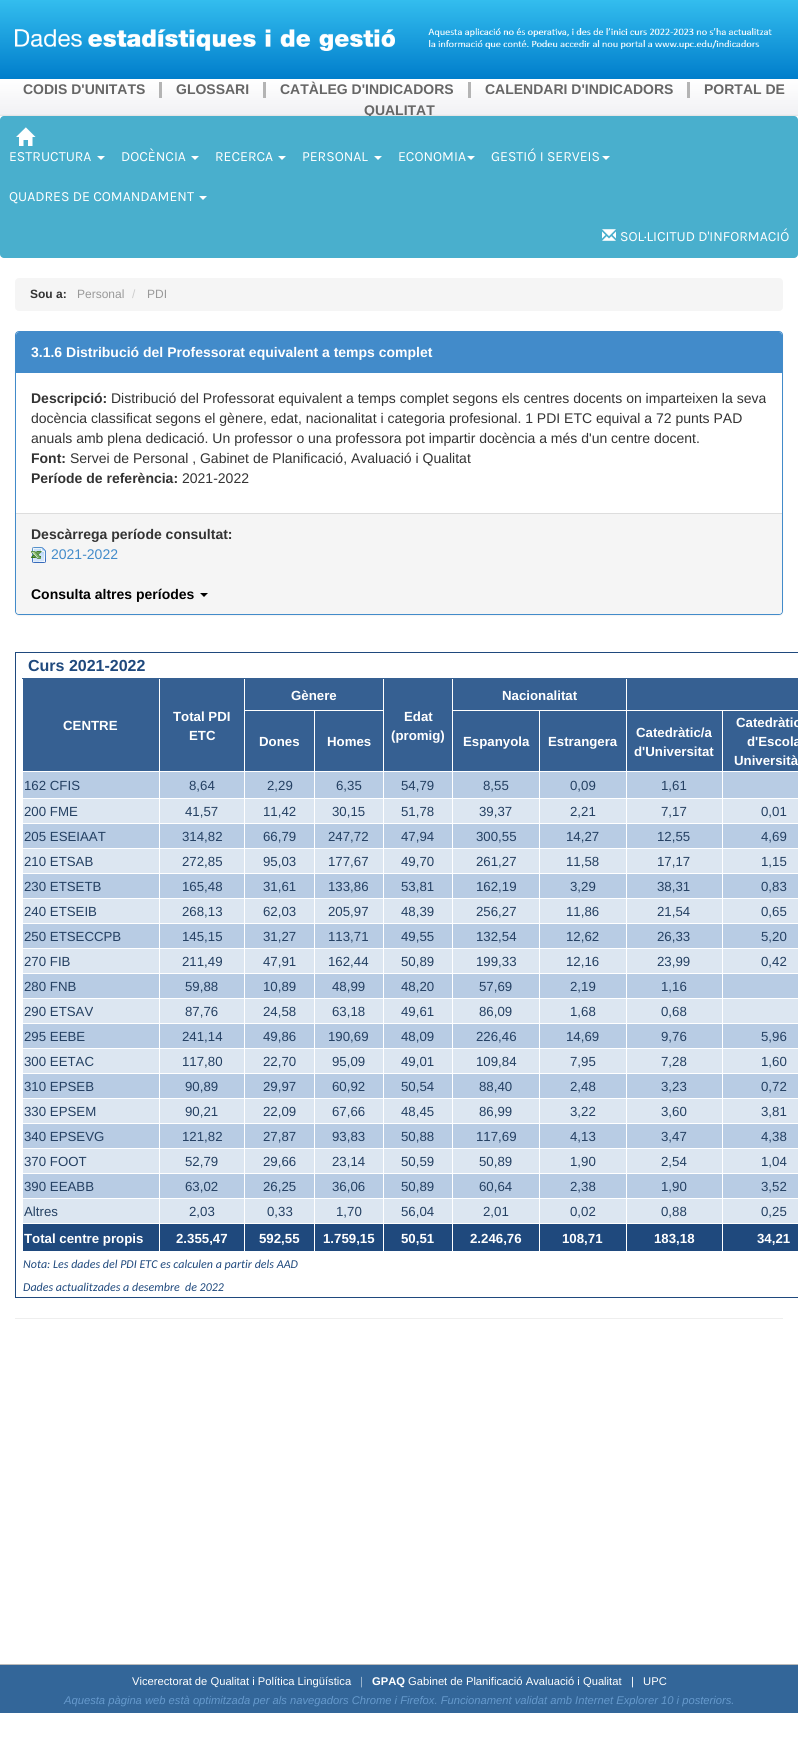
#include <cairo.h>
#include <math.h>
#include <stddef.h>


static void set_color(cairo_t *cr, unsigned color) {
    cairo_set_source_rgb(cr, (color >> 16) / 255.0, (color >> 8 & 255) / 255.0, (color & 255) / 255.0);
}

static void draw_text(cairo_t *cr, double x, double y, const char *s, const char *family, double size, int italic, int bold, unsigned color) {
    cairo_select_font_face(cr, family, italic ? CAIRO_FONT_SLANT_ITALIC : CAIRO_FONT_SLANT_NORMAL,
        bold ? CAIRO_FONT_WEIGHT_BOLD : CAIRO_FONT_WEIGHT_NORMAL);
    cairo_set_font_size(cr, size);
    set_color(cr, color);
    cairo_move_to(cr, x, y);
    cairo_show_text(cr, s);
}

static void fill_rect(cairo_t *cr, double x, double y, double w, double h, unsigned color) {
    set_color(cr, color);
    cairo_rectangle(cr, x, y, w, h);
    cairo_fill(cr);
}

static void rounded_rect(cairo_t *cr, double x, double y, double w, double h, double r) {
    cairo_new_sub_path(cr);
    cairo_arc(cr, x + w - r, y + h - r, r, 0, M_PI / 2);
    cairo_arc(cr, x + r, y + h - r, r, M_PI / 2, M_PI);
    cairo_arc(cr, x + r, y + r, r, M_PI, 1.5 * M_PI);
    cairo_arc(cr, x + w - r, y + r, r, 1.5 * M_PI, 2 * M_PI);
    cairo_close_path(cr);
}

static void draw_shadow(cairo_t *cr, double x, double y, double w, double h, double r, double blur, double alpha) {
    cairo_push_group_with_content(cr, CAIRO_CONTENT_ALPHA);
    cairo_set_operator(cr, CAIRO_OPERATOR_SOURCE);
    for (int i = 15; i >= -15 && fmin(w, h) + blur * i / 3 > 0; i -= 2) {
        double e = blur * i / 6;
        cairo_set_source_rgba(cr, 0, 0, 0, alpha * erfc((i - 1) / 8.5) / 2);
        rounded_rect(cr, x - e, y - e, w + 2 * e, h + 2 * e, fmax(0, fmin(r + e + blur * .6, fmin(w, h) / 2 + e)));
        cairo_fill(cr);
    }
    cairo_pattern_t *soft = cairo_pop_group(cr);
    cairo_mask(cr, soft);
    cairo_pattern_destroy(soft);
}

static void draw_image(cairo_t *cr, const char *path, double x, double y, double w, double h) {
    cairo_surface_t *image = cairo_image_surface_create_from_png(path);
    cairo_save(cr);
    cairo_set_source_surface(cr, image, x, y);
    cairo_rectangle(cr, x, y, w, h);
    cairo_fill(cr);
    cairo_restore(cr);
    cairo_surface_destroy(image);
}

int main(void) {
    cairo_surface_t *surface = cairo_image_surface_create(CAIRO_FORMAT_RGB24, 798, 1755);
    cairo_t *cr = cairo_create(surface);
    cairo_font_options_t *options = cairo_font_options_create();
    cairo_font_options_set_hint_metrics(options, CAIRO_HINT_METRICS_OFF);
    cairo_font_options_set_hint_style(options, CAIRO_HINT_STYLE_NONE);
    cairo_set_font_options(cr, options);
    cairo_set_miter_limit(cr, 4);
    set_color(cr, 0xFFFFFF);
    cairo_paint(cr);
    draw_image(cr, "assets/img1.png", 0, 0, 798, 116);
    draw_image(cr, "assets/img2.png", 15, 28, 757, 23);
    draw_text(cr, 23, 94, "CODIS D'UNITATS", "Liberation Sans", 14, 0, 1, 0x666666);
    fill_rect(cr, 159, 82, 3, 16, 0xB4B4B4);
    draw_text(cr, 176, 94, "GLOSSARI", "Liberation Sans", 14, 0, 1, 0x666666);
    fill_rect(cr, 263, 82, 3, 16, 0xB4B4B4);
    draw_text(cr, 280, 94, "CATÀLEG D'INDICADORS", "Liberation Sans", 14, 0, 1, 0x666666);
    fill_rect(cr, 468, 82, 3, 16, 0xB4B4B4);
    draw_text(cr, 485, 94, "CALENDARI D'INDICADORS", "Liberation Sans", 14, 0, 1, 0x666666);
    fill_rect(cr, 687, 82, 3, 16, 0xB4B4B4);
    draw_text(cr, 704, 94, "PORTAL DE", "Liberation Sans", 14, 0, 1, 0x666666);
    draw_text(cr, 364, 115, "QUALITAT", "Liberation Sans", 14, 0, 1, 0x666666);
    set_color(cr, 0x49AFCD);
    rounded_rect(cr, 0, 116, 798, 142, 4);
    cairo_fill(cr);
    draw_image(cr, "assets/img3.png", 16, 127, 20, 19);
    draw_text(cr, 9, 161, "ESTRUCTURA", "Karla", 14, 0, 0, 0xFFFFFF);
    cairo_new_path(cr);
    cairo_move_to(cr, 97, 156);
    cairo_line_to(cr, 105, 156);
    cairo_line_to(cr, 101, 160);
    cairo_close_path(cr);
    cairo_fill(cr);
    draw_text(cr, 121, 161, "DOCÈNCIA", "Karla", 14, 0, 0, 0xFFFFFF);
    cairo_new_path(cr);
    cairo_move_to(cr, 191, 156);
    cairo_line_to(cr, 199, 156);
    cairo_line_to(cr, 195, 160);
    cairo_close_path(cr);
    cairo_fill(cr);
    draw_text(cr, 215, 161, "RECERCA", "Karla", 14, 0, 0, 0xFFFFFF);
    cairo_new_path(cr);
    cairo_move_to(cr, 278, 156);
    cairo_line_to(cr, 286, 156);
    cairo_line_to(cr, 282, 160);
    cairo_close_path(cr);
    cairo_fill(cr);
    draw_text(cr, 302, 161, "PERSONAL", "Karla", 14, 0, 0, 0xFFFFFF);
    cairo_new_path(cr);
    cairo_move_to(cr, 374, 156);
    cairo_line_to(cr, 382, 156);
    cairo_line_to(cr, 378, 160);
    cairo_close_path(cr);
    cairo_fill(cr);
    draw_text(cr, 398, 161, "ECONOMIA", "Karla", 14, 0, 0, 0xFFFFFF);
    cairo_new_path(cr);
    cairo_move_to(cr, 467, 156);
    cairo_line_to(cr, 475, 156);
    cairo_line_to(cr, 471, 160);
    cairo_close_path(cr);
    cairo_fill(cr);
    draw_text(cr, 491, 161, "GESTIÓ I SERVEIS", "Karla", 14, 0, 0, 0xFFFFFF);
    cairo_new_path(cr);
    cairo_move_to(cr, 602, 156);
    cairo_line_to(cr, 610, 156);
    cairo_line_to(cr, 606, 160);
    cairo_close_path(cr);
    cairo_fill(cr);
    draw_text(cr, 9, 201, "QUADRES DE COMANDAMENT", "Karla", 14, 0, 0, 0xFFFFFF);
    cairo_new_path(cr);
    cairo_move_to(cr, 199, 196);
    cairo_line_to(cr, 207, 196);
    cairo_line_to(cr, 203, 200);
    cairo_close_path(cr);
    cairo_fill(cr);
    draw_image(cr, "assets/img4.png", 602, 229, 14, 12);
    draw_text(cr, 620, 241, "SOL·LICITUD D'INFORMACIÓ", "Karla", 14, 0, 0, 0xFFFFFF);
    set_color(cr, 0xF5F5F5);
    rounded_rect(cr, 15, 278, 768, 33, 4);
    cairo_fill(cr);
    draw_text(cr, 30, 298, "Sou a:", "Liberation Sans", 12, 0, 1, 0x333333);
    draw_text(cr, 77, 298, "Personal", "Liberation Sans", 12, 0, 0, 0x999999);
    draw_text(cr, 132, 298, "/", "Liberation Sans", 12, 0, 0, 0xCCCCCC);
    draw_text(cr, 147, 298, "PDI", "Liberation Sans", 12, 0, 0, 0x999999);
    set_color(cr, 0x000000);
    draw_shadow(cr, 15, 332, 768, 284, 4, 0.5, 0.05);
    set_color(cr, 0xFFFFFF);
    rounded_rect(cr, 15.5, 331.5, 767, 283, 3.5);
    cairo_fill_preserve(cr);
    set_color(cr, 0x428BCA);
    cairo_set_line_width(cr, 1);
    cairo_stroke(cr);
    cairo_new_path(cr);
    cairo_move_to(cr, 19, 332);
    cairo_line_to(cr, 779, 332);
    cairo_curve_to(cr, 780.5, 332, 782, 333.5, 782, 335);
    cairo_line_to(cr, 782, 373);
    cairo_line_to(cr, 16, 373);
    cairo_line_to(cr, 16, 335);
    cairo_curve_to(cr, 16, 333.5, 17.5, 332, 19, 332);
    cairo_close_path(cr);
    cairo_fill(cr);
    draw_text(cr, 31, 357, "3.1.6 Distribució del Professorat equivalent a temps complet", "Liberation Sans", 14, 0, 1, 0xFFFFFF);
    draw_text(cr, 31, 403, "Descripció:", "Liberation Sans", 14, 0, 1, 0x333333);
    draw_text(cr, 111, 403, "Distribució del Professorat equivalent a temps complet segons els centres docents on imparteixen la seva", "Liberation Sans", 14, 0, 0, 0x333333);
    draw_text(cr, 31, 423, "docència classificat segons el gènere, edat, nacionalitat i categoria profesional. 1 PDI ETC equival a 72 punts PAD", "Liberation Sans", 14, 0, 0, 0x333333);
    draw_text(cr, 31, 443, "anuals amb plena dedicació. Un professor o una professora pot impartir docència a més d'un centre docent.", "Liberation Sans", 14, 0, 0, 0x333333);
    draw_text(cr, 31, 463, "Font:", "Liberation Sans", 14, 0, 1, 0x333333);
    draw_text(cr, 70, 463, "Servei de Personal , Gabinet de Planificació, Avaluació i Qualitat", "Liberation Sans", 14, 0, 0, 0x333333);
    draw_text(cr, 31, 483, "Període de referència:", "Liberation Sans", 14, 0, 1, 0x333333);
    draw_text(cr, 182, 483, "2021-2022", "Liberation Sans", 14, 0, 0, 0x333333);
    set_color(cr, 0xF5F5F5);
    cairo_new_path(cr);
    cairo_move_to(cr, 16, 513);
    cairo_line_to(cr, 782, 513);
    cairo_line_to(cr, 782, 611);
    cairo_curve_to(cr, 782, 612.5, 780.5, 614, 779, 614);
    cairo_line_to(cr, 19, 614);
    cairo_curve_to(cr, 17.5, 614, 16, 612.5, 16, 611);
    cairo_close_path(cr);
    cairo_fill(cr);
    fill_rect(cr, 16, 513, 766, 1, 0xDDDDDD);
    draw_text(cr, 31, 539, "Descàrrega període consultat:", "Liberation Sans", 14, 0, 1, 0x333333);
    draw_image(cr, "assets/img5.png", 31, 547, 15, 16);
    draw_text(cr, 51, 559, "2021-2022", "Liberation Sans", 14, 0, 0, 0x428BCA);
    draw_text(cr, 31, 599, "Consulta altres períodes", "Liberation Sans", 14, 0, 1, 0x000000);
    cairo_new_path(cr);
    cairo_move_to(cr, 200, 593);
    cairo_line_to(cr, 208, 593);
    cairo_line_to(cr, 204, 597);
    cairo_close_path(cr);
    cairo_fill(cr);
    fill_rect(cr, 15, 652, 783, 1, 0x1F497D);
    fill_rect(cr, 22, 678, 776, 1, 0x366092);
    fill_rect(cr, 15, 1297, 783, 1, 0x1F497D);
    fill_rect(cr, 15, 678, 1, 620, 0x1F497D);
    fill_rect(cr, 15, 652, 1, 27, 0x1F497D);
    draw_text(cr, 28, 671, "Curs 2021-2022", "Liberation Sans", 16, 0, 1, 0x1F497D);
    fill_rect(cr, 245, 679, 138, 31, 0x366092);
    draw_text(cr, 291, 700, "Gènere", "Liberation Sans", 13.25, 0, 1, 0xFFFFFF);
    fill_rect(cr, 453, 679, 173, 31, 0x366092);
    draw_text(cr, 502, 700, "Nacionalitat", "Liberation Sans", 13.25, 0, 1, 0xFFFFFF);
    fill_rect(cr, 627, 679, 171, 31, 0x366092);
    fill_rect(cr, 23, 679, 136, 92, 0x366092);
    draw_text(cr, 63, 730, "CENTRE", "Liberation Sans", 13.25, 0, 1, 0xFFFFFF);
    fill_rect(cr, 160, 679, 84, 92, 0x366092);
    draw_text(cr, 173, 721, "Total PDI", "Liberation Sans", 13.25, 0, 1, 0xFFFFFF);
    draw_text(cr, 189, 740, "ETC", "Liberation Sans", 13.25, 0, 1, 0xFFFFFF);
    fill_rect(cr, 384, 679, 68, 92, 0x366092);
    draw_text(cr, 404, 721, "Edat", "Liberation Sans", 13.25, 0, 1, 0xFFFFFF);
    draw_text(cr, 391, 740, "(promig)", "Liberation Sans", 13.25, 0, 1, 0xFFFFFF);
    fill_rect(cr, 245, 711, 69, 60, 0x366092);
    draw_text(cr, 259, 746, "Dones", "Liberation Sans", 13.25, 0, 1, 0xFFFFFF);
    fill_rect(cr, 315, 711, 68, 60, 0x366092);
    draw_text(cr, 327, 746, "Homes", "Liberation Sans", 13.25, 0, 1, 0xFFFFFF);
    fill_rect(cr, 453, 711, 86, 60, 0x366092);
    draw_text(cr, 463, 746, "Espanyola", "Liberation Sans", 13.25, 0, 1, 0xFFFFFF);
    fill_rect(cr, 540, 711, 86, 60, 0x366092);
    draw_text(cr, 548, 746, "Estrangera", "Liberation Sans", 13.25, 0, 1, 0xFFFFFF);
    fill_rect(cr, 627, 711, 95, 60, 0x366092);
    draw_text(cr, 636, 737, "Catedràtic/a", "Liberation Sans", 13.25, 0, 1, 0xFFFFFF);
    draw_text(cr, 634, 756, "d'Universitat", "Liberation Sans", 13.25, 0, 1, 0xFFFFFF);
    fill_rect(cr, 723, 711, 75, 60, 0x366092);
    draw_text(cr, 736, 727, "Catedràtic", "Liberation Sans", 13.25, 0, 1, 0xFFFFFF);
    draw_text(cr, 747, 746, "d'Escola", "Liberation Sans", 13.25, 0, 1, 0xFFFFFF);
    draw_text(cr, 734, 765, "Università", "Liberation Sans", 13.25, 0, 1, 0xFFFFFF);
    fill_rect(cr, 23, 772, 136, 26, 0xB8CCE4);
    draw_text(cr, 24, 790, "162 CFIS", "Liberation Sans", 13.25, 0, 0, 0x244062);
    fill_rect(cr, 160, 772, 84, 26, 0xB8CCE4);
    draw_text(cr, 189, 790, "8,64", "Liberation Sans", 13.25, 0, 0, 0x244062);
    fill_rect(cr, 245, 772, 69, 26, 0xB8CCE4);
    draw_text(cr, 267, 790, "2,29", "Liberation Sans", 13.25, 0, 0, 0x244062);
    fill_rect(cr, 315, 772, 68, 26, 0xB8CCE4);
    draw_text(cr, 336, 790, "6,35", "Liberation Sans", 13.25, 0, 0, 0x244062);
    fill_rect(cr, 384, 772, 68, 26, 0xB8CCE4);
    draw_text(cr, 401, 790, "54,79", "Liberation Sans", 13.25, 0, 0, 0x244062);
    fill_rect(cr, 453, 772, 86, 26, 0xB8CCE4);
    draw_text(cr, 483, 790, "8,55", "Liberation Sans", 13.25, 0, 0, 0x244062);
    fill_rect(cr, 540, 772, 86, 26, 0xB8CCE4);
    draw_text(cr, 570, 790, "0,09", "Liberation Sans", 13.25, 0, 0, 0x244062);
    fill_rect(cr, 627, 772, 95, 26, 0xB8CCE4);
    draw_text(cr, 661, 790, "1,61", "Liberation Sans", 13.25, 0, 0, 0x244062);
    fill_rect(cr, 723, 772, 75, 26, 0xB8CCE4);
    fill_rect(cr, 23, 799, 136, 24, 0xDCE6F1);
    draw_text(cr, 24, 816, "200 FME", "Liberation Sans", 13.25, 0, 0, 0x244062);
    fill_rect(cr, 160, 799, 84, 24, 0xDCE6F1);
    draw_text(cr, 185, 816, "41,57", "Liberation Sans", 13.25, 0, 0, 0x244062);
    fill_rect(cr, 245, 799, 69, 24, 0xDCE6F1);
    draw_text(cr, 263, 816, "11,42", "Liberation Sans", 13.25, 0, 0, 0x244062);
    fill_rect(cr, 315, 799, 68, 24, 0xDCE6F1);
    draw_text(cr, 332, 816, "30,15", "Liberation Sans", 13.25, 0, 0, 0x244062);
    fill_rect(cr, 384, 799, 68, 24, 0xDCE6F1);
    draw_text(cr, 401, 816, "51,78", "Liberation Sans", 13.25, 0, 0, 0x244062);
    fill_rect(cr, 453, 799, 86, 24, 0xDCE6F1);
    draw_text(cr, 479, 816, "39,37", "Liberation Sans", 13.25, 0, 0, 0x244062);
    fill_rect(cr, 540, 799, 86, 24, 0xDCE6F1);
    draw_text(cr, 570, 816, "2,21", "Liberation Sans", 13.25, 0, 0, 0x244062);
    fill_rect(cr, 627, 799, 95, 24, 0xDCE6F1);
    draw_text(cr, 661, 816, "7,17", "Liberation Sans", 13.25, 0, 0, 0x244062);
    fill_rect(cr, 723, 799, 75, 24, 0xDCE6F1);
    draw_text(cr, 761, 816, "0,01", "Liberation Sans", 13.25, 0, 0, 0x244062);
    fill_rect(cr, 23, 824, 136, 24, 0xB8CCE4);
    draw_text(cr, 24, 841, "205 ESEIAAT", "Liberation Sans", 13.25, 0, 0, 0x244062);
    fill_rect(cr, 160, 824, 84, 24, 0xB8CCE4);
    draw_text(cr, 182, 841, "314,82", "Liberation Sans", 13.25, 0, 0, 0x244062);
    fill_rect(cr, 245, 824, 69, 24, 0xB8CCE4);
    draw_text(cr, 263, 841, "66,79", "Liberation Sans", 13.25, 0, 0, 0x244062);
    fill_rect(cr, 315, 824, 68, 24, 0xB8CCE4);
    draw_text(cr, 328, 841, "247,72", "Liberation Sans", 13.25, 0, 0, 0x244062);
    fill_rect(cr, 384, 824, 68, 24, 0xB8CCE4);
    draw_text(cr, 401, 841, "47,94", "Liberation Sans", 13.25, 0, 0, 0x244062);
    fill_rect(cr, 453, 824, 86, 24, 0xB8CCE4);
    draw_text(cr, 476, 841, "300,55", "Liberation Sans", 13.25, 0, 0, 0x244062);
    fill_rect(cr, 540, 824, 86, 24, 0xB8CCE4);
    draw_text(cr, 566, 841, "14,27", "Liberation Sans", 13.25, 0, 0, 0x244062);
    fill_rect(cr, 627, 824, 95, 24, 0xB8CCE4);
    draw_text(cr, 657, 841, "12,55", "Liberation Sans", 13.25, 0, 0, 0x244062);
    fill_rect(cr, 723, 824, 75, 24, 0xB8CCE4);
    draw_text(cr, 761, 841, "4,69", "Liberation Sans", 13.25, 0, 0, 0x244062);
    fill_rect(cr, 23, 849, 136, 24, 0xDCE6F1);
    draw_text(cr, 24, 866, "210 ETSAB", "Liberation Sans", 13.25, 0, 0, 0x244062);
    fill_rect(cr, 160, 849, 84, 24, 0xDCE6F1);
    draw_text(cr, 182, 866, "272,85", "Liberation Sans", 13.25, 0, 0, 0x244062);
    fill_rect(cr, 245, 849, 69, 24, 0xDCE6F1);
    draw_text(cr, 263, 866, "95,03", "Liberation Sans", 13.25, 0, 0, 0x244062);
    fill_rect(cr, 315, 849, 68, 24, 0xDCE6F1);
    draw_text(cr, 328, 866, "177,67", "Liberation Sans", 13.25, 0, 0, 0x244062);
    fill_rect(cr, 384, 849, 68, 24, 0xDCE6F1);
    draw_text(cr, 401, 866, "49,70", "Liberation Sans", 13.25, 0, 0, 0x244062);
    fill_rect(cr, 453, 849, 86, 24, 0xDCE6F1);
    draw_text(cr, 476, 866, "261,27", "Liberation Sans", 13.25, 0, 0, 0x244062);
    fill_rect(cr, 540, 849, 86, 24, 0xDCE6F1);
    draw_text(cr, 566, 866, "11,58", "Liberation Sans", 13.25, 0, 0, 0x244062);
    fill_rect(cr, 627, 849, 95, 24, 0xDCE6F1);
    draw_text(cr, 657, 866, "17,17", "Liberation Sans", 13.25, 0, 0, 0x244062);
    fill_rect(cr, 723, 849, 75, 24, 0xDCE6F1);
    draw_text(cr, 761, 866, "1,15", "Liberation Sans", 13.25, 0, 0, 0x244062);
    fill_rect(cr, 23, 874, 136, 24, 0xB8CCE4);
    draw_text(cr, 24, 891, "230 ETSETB", "Liberation Sans", 13.25, 0, 0, 0x244062);
    fill_rect(cr, 160, 874, 84, 24, 0xB8CCE4);
    draw_text(cr, 182, 891, "165,48", "Liberation Sans", 13.25, 0, 0, 0x244062);
    fill_rect(cr, 245, 874, 69, 24, 0xB8CCE4);
    draw_text(cr, 263, 891, "31,61", "Liberation Sans", 13.25, 0, 0, 0x244062);
    fill_rect(cr, 315, 874, 68, 24, 0xB8CCE4);
    draw_text(cr, 328, 891, "133,86", "Liberation Sans", 13.25, 0, 0, 0x244062);
    fill_rect(cr, 384, 874, 68, 24, 0xB8CCE4);
    draw_text(cr, 401, 891, "53,81", "Liberation Sans", 13.25, 0, 0, 0x244062);
    fill_rect(cr, 453, 874, 86, 24, 0xB8CCE4);
    draw_text(cr, 476, 891, "162,19", "Liberation Sans", 13.25, 0, 0, 0x244062);
    fill_rect(cr, 540, 874, 86, 24, 0xB8CCE4);
    draw_text(cr, 570, 891, "3,29", "Liberation Sans", 13.25, 0, 0, 0x244062);
    fill_rect(cr, 627, 874, 95, 24, 0xB8CCE4);
    draw_text(cr, 657, 891, "38,31", "Liberation Sans", 13.25, 0, 0, 0x244062);
    fill_rect(cr, 723, 874, 75, 24, 0xB8CCE4);
    draw_text(cr, 761, 891, "0,83", "Liberation Sans", 13.25, 0, 0, 0x244062);
    fill_rect(cr, 23, 899, 136, 24, 0xDCE6F1);
    draw_text(cr, 24, 916, "240 ETSEIB", "Liberation Sans", 13.25, 0, 0, 0x244062);
    fill_rect(cr, 160, 899, 84, 24, 0xDCE6F1);
    draw_text(cr, 182, 916, "268,13", "Liberation Sans", 13.25, 0, 0, 0x244062);
    fill_rect(cr, 245, 899, 69, 24, 0xDCE6F1);
    draw_text(cr, 263, 916, "62,03", "Liberation Sans", 13.25, 0, 0, 0x244062);
    fill_rect(cr, 315, 899, 68, 24, 0xDCE6F1);
    draw_text(cr, 328, 916, "205,97", "Liberation Sans", 13.25, 0, 0, 0x244062);
    fill_rect(cr, 384, 899, 68, 24, 0xDCE6F1);
    draw_text(cr, 401, 916, "48,39", "Liberation Sans", 13.25, 0, 0, 0x244062);
    fill_rect(cr, 453, 899, 86, 24, 0xDCE6F1);
    draw_text(cr, 476, 916, "256,27", "Liberation Sans", 13.25, 0, 0, 0x244062);
    fill_rect(cr, 540, 899, 86, 24, 0xDCE6F1);
    draw_text(cr, 566, 916, "11,86", "Liberation Sans", 13.25, 0, 0, 0x244062);
    fill_rect(cr, 627, 899, 95, 24, 0xDCE6F1);
    draw_text(cr, 657, 916, "21,54", "Liberation Sans", 13.25, 0, 0, 0x244062);
    fill_rect(cr, 723, 899, 75, 24, 0xDCE6F1);
    draw_text(cr, 761, 916, "0,65", "Liberation Sans", 13.25, 0, 0, 0x244062);
    fill_rect(cr, 23, 924, 136, 24, 0xB8CCE4);
    draw_text(cr, 24, 941, "250 ETSECCPB", "Liberation Sans", 13.25, 0, 0, 0x244062);
    fill_rect(cr, 160, 924, 84, 24, 0xB8CCE4);
    draw_text(cr, 182, 941, "145,15", "Liberation Sans", 13.25, 0, 0, 0x244062);
    fill_rect(cr, 245, 924, 69, 24, 0xB8CCE4);
    draw_text(cr, 263, 941, "31,27", "Liberation Sans", 13.25, 0, 0, 0x244062);
    fill_rect(cr, 315, 924, 68, 24, 0xB8CCE4);
    draw_text(cr, 328, 941, "113,71", "Liberation Sans", 13.25, 0, 0, 0x244062);
    fill_rect(cr, 384, 924, 68, 24, 0xB8CCE4);
    draw_text(cr, 401, 941, "49,55", "Liberation Sans", 13.25, 0, 0, 0x244062);
    fill_rect(cr, 453, 924, 86, 24, 0xB8CCE4);
    draw_text(cr, 476, 941, "132,54", "Liberation Sans", 13.25, 0, 0, 0x244062);
    fill_rect(cr, 540, 924, 86, 24, 0xB8CCE4);
    draw_text(cr, 566, 941, "12,62", "Liberation Sans", 13.25, 0, 0, 0x244062);
    fill_rect(cr, 627, 924, 95, 24, 0xB8CCE4);
    draw_text(cr, 657, 941, "26,33", "Liberation Sans", 13.25, 0, 0, 0x244062);
    fill_rect(cr, 723, 924, 75, 24, 0xB8CCE4);
    draw_text(cr, 761, 941, "5,20", "Liberation Sans", 13.25, 0, 0, 0x244062);
    fill_rect(cr, 23, 949, 136, 24, 0xDCE6F1);
    draw_text(cr, 24, 966, "270 FIB", "Liberation Sans", 13.25, 0, 0, 0x244062);
    fill_rect(cr, 160, 949, 84, 24, 0xDCE6F1);
    draw_text(cr, 182, 966, "211,49", "Liberation Sans", 13.25, 0, 0, 0x244062);
    fill_rect(cr, 245, 949, 69, 24, 0xDCE6F1);
    draw_text(cr, 263, 966, "47,91", "Liberation Sans", 13.25, 0, 0, 0x244062);
    fill_rect(cr, 315, 949, 68, 24, 0xDCE6F1);
    draw_text(cr, 328, 966, "162,44", "Liberation Sans", 13.25, 0, 0, 0x244062);
    fill_rect(cr, 384, 949, 68, 24, 0xDCE6F1);
    draw_text(cr, 401, 966, "50,89", "Liberation Sans", 13.25, 0, 0, 0x244062);
    fill_rect(cr, 453, 949, 86, 24, 0xDCE6F1);
    draw_text(cr, 476, 966, "199,33", "Liberation Sans", 13.25, 0, 0, 0x244062);
    fill_rect(cr, 540, 949, 86, 24, 0xDCE6F1);
    draw_text(cr, 566, 966, "12,16", "Liberation Sans", 13.25, 0, 0, 0x244062);
    fill_rect(cr, 627, 949, 95, 24, 0xDCE6F1);
    draw_text(cr, 657, 966, "23,99", "Liberation Sans", 13.25, 0, 0, 0x244062);
    fill_rect(cr, 723, 949, 75, 24, 0xDCE6F1);
    draw_text(cr, 761, 966, "0,42", "Liberation Sans", 13.25, 0, 0, 0x244062);
    fill_rect(cr, 23, 974, 136, 24, 0xB8CCE4);
    draw_text(cr, 24, 991, "280 FNB", "Liberation Sans", 13.25, 0, 0, 0x244062);
    fill_rect(cr, 160, 974, 84, 24, 0xB8CCE4);
    draw_text(cr, 185, 991, "59,88", "Liberation Sans", 13.25, 0, 0, 0x244062);
    fill_rect(cr, 245, 974, 69, 24, 0xB8CCE4);
    draw_text(cr, 263, 991, "10,89", "Liberation Sans", 13.25, 0, 0, 0x244062);
    fill_rect(cr, 315, 974, 68, 24, 0xB8CCE4);
    draw_text(cr, 332, 991, "48,99", "Liberation Sans", 13.25, 0, 0, 0x244062);
    fill_rect(cr, 384, 974, 68, 24, 0xB8CCE4);
    draw_text(cr, 401, 991, "48,20", "Liberation Sans", 13.25, 0, 0, 0x244062);
    fill_rect(cr, 453, 974, 86, 24, 0xB8CCE4);
    draw_text(cr, 479, 991, "57,69", "Liberation Sans", 13.25, 0, 0, 0x244062);
    fill_rect(cr, 540, 974, 86, 24, 0xB8CCE4);
    draw_text(cr, 570, 991, "2,19", "Liberation Sans", 13.25, 0, 0, 0x244062);
    fill_rect(cr, 627, 974, 95, 24, 0xB8CCE4);
    draw_text(cr, 661, 991, "1,16", "Liberation Sans", 13.25, 0, 0, 0x244062);
    fill_rect(cr, 723, 974, 75, 24, 0xB8CCE4);
    fill_rect(cr, 23, 999, 136, 24, 0xDCE6F1);
    draw_text(cr, 24, 1016, "290 ETSAV", "Liberation Sans", 13.25, 0, 0, 0x244062);
    fill_rect(cr, 160, 999, 84, 24, 0xDCE6F1);
    draw_text(cr, 185, 1016, "87,76", "Liberation Sans", 13.25, 0, 0, 0x244062);
    fill_rect(cr, 245, 999, 69, 24, 0xDCE6F1);
    draw_text(cr, 263, 1016, "24,58", "Liberation Sans", 13.25, 0, 0, 0x244062);
    fill_rect(cr, 315, 999, 68, 24, 0xDCE6F1);
    draw_text(cr, 332, 1016, "63,18", "Liberation Sans", 13.25, 0, 0, 0x244062);
    fill_rect(cr, 384, 999, 68, 24, 0xDCE6F1);
    draw_text(cr, 401, 1016, "49,61", "Liberation Sans", 13.25, 0, 0, 0x244062);
    fill_rect(cr, 453, 999, 86, 24, 0xDCE6F1);
    draw_text(cr, 479, 1016, "86,09", "Liberation Sans", 13.25, 0, 0, 0x244062);
    fill_rect(cr, 540, 999, 86, 24, 0xDCE6F1);
    draw_text(cr, 570, 1016, "1,68", "Liberation Sans", 13.25, 0, 0, 0x244062);
    fill_rect(cr, 627, 999, 95, 24, 0xDCE6F1);
    draw_text(cr, 661, 1016, "0,68", "Liberation Sans", 13.25, 0, 0, 0x244062);
    fill_rect(cr, 723, 999, 75, 24, 0xDCE6F1);
    fill_rect(cr, 23, 1024, 136, 24, 0xB8CCE4);
    draw_text(cr, 24, 1041, "295 EEBE", "Liberation Sans", 13.25, 0, 0, 0x244062);
    fill_rect(cr, 160, 1024, 84, 24, 0xB8CCE4);
    draw_text(cr, 182, 1041, "241,14", "Liberation Sans", 13.25, 0, 0, 0x244062);
    fill_rect(cr, 245, 1024, 69, 24, 0xB8CCE4);
    draw_text(cr, 263, 1041, "49,86", "Liberation Sans", 13.25, 0, 0, 0x244062);
    fill_rect(cr, 315, 1024, 68, 24, 0xB8CCE4);
    draw_text(cr, 328, 1041, "190,69", "Liberation Sans", 13.25, 0, 0, 0x244062);
    fill_rect(cr, 384, 1024, 68, 24, 0xB8CCE4);
    draw_text(cr, 401, 1041, "48,09", "Liberation Sans", 13.25, 0, 0, 0x244062);
    fill_rect(cr, 453, 1024, 86, 24, 0xB8CCE4);
    draw_text(cr, 476, 1041, "226,46", "Liberation Sans", 13.25, 0, 0, 0x244062);
    fill_rect(cr, 540, 1024, 86, 24, 0xB8CCE4);
    draw_text(cr, 566, 1041, "14,69", "Liberation Sans", 13.25, 0, 0, 0x244062);
    fill_rect(cr, 627, 1024, 95, 24, 0xB8CCE4);
    draw_text(cr, 661, 1041, "9,76", "Liberation Sans", 13.25, 0, 0, 0x244062);
    fill_rect(cr, 723, 1024, 75, 24, 0xB8CCE4);
    draw_text(cr, 761, 1041, "5,96", "Liberation Sans", 13.25, 0, 0, 0x244062);
    fill_rect(cr, 23, 1049, 136, 24, 0xDCE6F1);
    draw_text(cr, 24, 1066, "300 EETAC", "Liberation Sans", 13.25, 0, 0, 0x244062);
    fill_rect(cr, 160, 1049, 84, 24, 0xDCE6F1);
    draw_text(cr, 182, 1066, "117,80", "Liberation Sans", 13.25, 0, 0, 0x244062);
    fill_rect(cr, 245, 1049, 69, 24, 0xDCE6F1);
    draw_text(cr, 263, 1066, "22,70", "Liberation Sans", 13.25, 0, 0, 0x244062);
    fill_rect(cr, 315, 1049, 68, 24, 0xDCE6F1);
    draw_text(cr, 332, 1066, "95,09", "Liberation Sans", 13.25, 0, 0, 0x244062);
    fill_rect(cr, 384, 1049, 68, 24, 0xDCE6F1);
    draw_text(cr, 401, 1066, "49,01", "Liberation Sans", 13.25, 0, 0, 0x244062);
    fill_rect(cr, 453, 1049, 86, 24, 0xDCE6F1);
    draw_text(cr, 476, 1066, "109,84", "Liberation Sans", 13.25, 0, 0, 0x244062);
    fill_rect(cr, 540, 1049, 86, 24, 0xDCE6F1);
    draw_text(cr, 570, 1066, "7,95", "Liberation Sans", 13.25, 0, 0, 0x244062);
    fill_rect(cr, 627, 1049, 95, 24, 0xDCE6F1);
    draw_text(cr, 661, 1066, "7,28", "Liberation Sans", 13.25, 0, 0, 0x244062);
    fill_rect(cr, 723, 1049, 75, 24, 0xDCE6F1);
    draw_text(cr, 761, 1066, "1,60", "Liberation Sans", 13.25, 0, 0, 0x244062);
    fill_rect(cr, 23, 1074, 136, 24, 0xB8CCE4);
    draw_text(cr, 24, 1091, "310 EPSEB", "Liberation Sans", 13.25, 0, 0, 0x244062);
    fill_rect(cr, 160, 1074, 84, 24, 0xB8CCE4);
    draw_text(cr, 185, 1091, "90,89", "Liberation Sans", 13.25, 0, 0, 0x244062);
    fill_rect(cr, 245, 1074, 69, 24, 0xB8CCE4);
    draw_text(cr, 263, 1091, "29,97", "Liberation Sans", 13.25, 0, 0, 0x244062);
    fill_rect(cr, 315, 1074, 68, 24, 0xB8CCE4);
    draw_text(cr, 332, 1091, "60,92", "Liberation Sans", 13.25, 0, 0, 0x244062);
    fill_rect(cr, 384, 1074, 68, 24, 0xB8CCE4);
    draw_text(cr, 401, 1091, "50,54", "Liberation Sans", 13.25, 0, 0, 0x244062);
    fill_rect(cr, 453, 1074, 86, 24, 0xB8CCE4);
    draw_text(cr, 479, 1091, "88,40", "Liberation Sans", 13.25, 0, 0, 0x244062);
    fill_rect(cr, 540, 1074, 86, 24, 0xB8CCE4);
    draw_text(cr, 570, 1091, "2,48", "Liberation Sans", 13.25, 0, 0, 0x244062);
    fill_rect(cr, 627, 1074, 95, 24, 0xB8CCE4);
    draw_text(cr, 661, 1091, "3,23", "Liberation Sans", 13.25, 0, 0, 0x244062);
    fill_rect(cr, 723, 1074, 75, 24, 0xB8CCE4);
    draw_text(cr, 761, 1091, "0,72", "Liberation Sans", 13.25, 0, 0, 0x244062);
    fill_rect(cr, 23, 1099, 136, 24, 0xDCE6F1);
    draw_text(cr, 24, 1116, "330 EPSEM", "Liberation Sans", 13.25, 0, 0, 0x244062);
    fill_rect(cr, 160, 1099, 84, 24, 0xDCE6F1);
    draw_text(cr, 185, 1116, "90,21", "Liberation Sans", 13.25, 0, 0, 0x244062);
    fill_rect(cr, 245, 1099, 69, 24, 0xDCE6F1);
    draw_text(cr, 263, 1116, "22,09", "Liberation Sans", 13.25, 0, 0, 0x244062);
    fill_rect(cr, 315, 1099, 68, 24, 0xDCE6F1);
    draw_text(cr, 332, 1116, "67,66", "Liberation Sans", 13.25, 0, 0, 0x244062);
    fill_rect(cr, 384, 1099, 68, 24, 0xDCE6F1);
    draw_text(cr, 401, 1116, "48,45", "Liberation Sans", 13.25, 0, 0, 0x244062);
    fill_rect(cr, 453, 1099, 86, 24, 0xDCE6F1);
    draw_text(cr, 479, 1116, "86,99", "Liberation Sans", 13.25, 0, 0, 0x244062);
    fill_rect(cr, 540, 1099, 86, 24, 0xDCE6F1);
    draw_text(cr, 570, 1116, "3,22", "Liberation Sans", 13.25, 0, 0, 0x244062);
    fill_rect(cr, 627, 1099, 95, 24, 0xDCE6F1);
    draw_text(cr, 661, 1116, "3,60", "Liberation Sans", 13.25, 0, 0, 0x244062);
    fill_rect(cr, 723, 1099, 75, 24, 0xDCE6F1);
    draw_text(cr, 761, 1116, "3,81", "Liberation Sans", 13.25, 0, 0, 0x244062);
    fill_rect(cr, 23, 1124, 136, 24, 0xB8CCE4);
    draw_text(cr, 24, 1141, "340 EPSEVG", "Liberation Sans", 13.25, 0, 0, 0x244062);
    fill_rect(cr, 160, 1124, 84, 24, 0xB8CCE4);
    draw_text(cr, 182, 1141, "121,82", "Liberation Sans", 13.25, 0, 0, 0x244062);
    fill_rect(cr, 245, 1124, 69, 24, 0xB8CCE4);
    draw_text(cr, 263, 1141, "27,87", "Liberation Sans", 13.25, 0, 0, 0x244062);
    fill_rect(cr, 315, 1124, 68, 24, 0xB8CCE4);
    draw_text(cr, 332, 1141, "93,83", "Liberation Sans", 13.25, 0, 0, 0x244062);
    fill_rect(cr, 384, 1124, 68, 24, 0xB8CCE4);
    draw_text(cr, 401, 1141, "50,88", "Liberation Sans", 13.25, 0, 0, 0x244062);
    fill_rect(cr, 453, 1124, 86, 24, 0xB8CCE4);
    draw_text(cr, 476, 1141, "117,69", "Liberation Sans", 13.25, 0, 0, 0x244062);
    fill_rect(cr, 540, 1124, 86, 24, 0xB8CCE4);
    draw_text(cr, 570, 1141, "4,13", "Liberation Sans", 13.25, 0, 0, 0x244062);
    fill_rect(cr, 627, 1124, 95, 24, 0xB8CCE4);
    draw_text(cr, 661, 1141, "3,47", "Liberation Sans", 13.25, 0, 0, 0x244062);
    fill_rect(cr, 723, 1124, 75, 24, 0xB8CCE4);
    draw_text(cr, 761, 1141, "4,38", "Liberation Sans", 13.25, 0, 0, 0x244062);
    fill_rect(cr, 23, 1149, 136, 24, 0xDCE6F1);
    draw_text(cr, 24, 1166, "370 FOOT", "Liberation Sans", 13.25, 0, 0, 0x244062);
    fill_rect(cr, 160, 1149, 84, 24, 0xDCE6F1);
    draw_text(cr, 185, 1166, "52,79", "Liberation Sans", 13.25, 0, 0, 0x244062);
    fill_rect(cr, 245, 1149, 69, 24, 0xDCE6F1);
    draw_text(cr, 263, 1166, "29,66", "Liberation Sans", 13.25, 0, 0, 0x244062);
    fill_rect(cr, 315, 1149, 68, 24, 0xDCE6F1);
    draw_text(cr, 332, 1166, "23,14", "Liberation Sans", 13.25, 0, 0, 0x244062);
    fill_rect(cr, 384, 1149, 68, 24, 0xDCE6F1);
    draw_text(cr, 401, 1166, "50,59", "Liberation Sans", 13.25, 0, 0, 0x244062);
    fill_rect(cr, 453, 1149, 86, 24, 0xDCE6F1);
    draw_text(cr, 479, 1166, "50,89", "Liberation Sans", 13.25, 0, 0, 0x244062);
    fill_rect(cr, 540, 1149, 86, 24, 0xDCE6F1);
    draw_text(cr, 570, 1166, "1,90", "Liberation Sans", 13.25, 0, 0, 0x244062);
    fill_rect(cr, 627, 1149, 95, 24, 0xDCE6F1);
    draw_text(cr, 661, 1166, "2,54", "Liberation Sans", 13.25, 0, 0, 0x244062);
    fill_rect(cr, 723, 1149, 75, 24, 0xDCE6F1);
    draw_text(cr, 761, 1166, "1,04", "Liberation Sans", 13.25, 0, 0, 0x244062);
    fill_rect(cr, 23, 1174, 136, 24, 0xB8CCE4);
    draw_text(cr, 24, 1191, "390 EEABB", "Liberation Sans", 13.25, 0, 0, 0x244062);
    fill_rect(cr, 160, 1174, 84, 24, 0xB8CCE4);
    draw_text(cr, 185, 1191, "63,02", "Liberation Sans", 13.25, 0, 0, 0x244062);
    fill_rect(cr, 245, 1174, 69, 24, 0xB8CCE4);
    draw_text(cr, 263, 1191, "26,25", "Liberation Sans", 13.25, 0, 0, 0x244062);
    fill_rect(cr, 315, 1174, 68, 24, 0xB8CCE4);
    draw_text(cr, 332, 1191, "36,06", "Liberation Sans", 13.25, 0, 0, 0x244062);
    fill_rect(cr, 384, 1174, 68, 24, 0xB8CCE4);
    draw_text(cr, 401, 1191, "50,89", "Liberation Sans", 13.25, 0, 0, 0x244062);
    fill_rect(cr, 453, 1174, 86, 24, 0xB8CCE4);
    draw_text(cr, 479, 1191, "60,64", "Liberation Sans", 13.25, 0, 0, 0x244062);
    fill_rect(cr, 540, 1174, 86, 24, 0xB8CCE4);
    draw_text(cr, 570, 1191, "2,38", "Liberation Sans", 13.25, 0, 0, 0x244062);
    fill_rect(cr, 627, 1174, 95, 24, 0xB8CCE4);
    draw_text(cr, 661, 1191, "1,90", "Liberation Sans", 13.25, 0, 0, 0x244062);
    fill_rect(cr, 723, 1174, 75, 24, 0xB8CCE4);
    draw_text(cr, 761, 1191, "3,52", "Liberation Sans", 13.25, 0, 0, 0x244062);
    fill_rect(cr, 23, 1199, 136, 24, 0xDCE6F1);
    draw_text(cr, 24, 1216, "Altres", "Liberation Sans", 13.25, 0, 0, 0x244062);
    fill_rect(cr, 160, 1199, 84, 24, 0xDCE6F1);
    draw_text(cr, 189, 1216, "2,03", "Liberation Sans", 13.25, 0, 0, 0x244062);
    fill_rect(cr, 245, 1199, 69, 24, 0xDCE6F1);
    draw_text(cr, 267, 1216, "0,33", "Liberation Sans", 13.25, 0, 0, 0x244062);
    fill_rect(cr, 315, 1199, 68, 24, 0xDCE6F1);
    draw_text(cr, 336, 1216, "1,70", "Liberation Sans", 13.25, 0, 0, 0x244062);
    fill_rect(cr, 384, 1199, 68, 24, 0xDCE6F1);
    draw_text(cr, 401, 1216, "56,04", "Liberation Sans", 13.25, 0, 0, 0x244062);
    fill_rect(cr, 453, 1199, 86, 24, 0xDCE6F1);
    draw_text(cr, 483, 1216, "2,01", "Liberation Sans", 13.25, 0, 0, 0x244062);
    fill_rect(cr, 540, 1199, 86, 24, 0xDCE6F1);
    draw_text(cr, 570, 1216, "0,02", "Liberation Sans", 13.25, 0, 0, 0x244062);
    fill_rect(cr, 627, 1199, 95, 24, 0xDCE6F1);
    draw_text(cr, 661, 1216, "0,88", "Liberation Sans", 13.25, 0, 0, 0x244062);
    fill_rect(cr, 723, 1199, 75, 24, 0xDCE6F1);
    draw_text(cr, 761, 1216, "0,25", "Liberation Sans", 13.25, 0, 0, 0x244062);
    fill_rect(cr, 23, 1224, 136, 27, 0x1F497D);
    draw_text(cr, 24, 1243, "Total centre propis", "Liberation Sans", 13.25, 0, 1, 0xFFFFFF);
    fill_rect(cr, 160, 1224, 84, 27, 0x1F497D);
    draw_text(cr, 176, 1243, "2.355,47", "Liberation Sans", 13.25, 0, 1, 0xFFFFFF);
    fill_rect(cr, 245, 1224, 69, 27, 0x1F497D);
    draw_text(cr, 259, 1243, "592,55", "Liberation Sans", 13.25, 0, 1, 0xFFFFFF);
    fill_rect(cr, 315, 1224, 68, 27, 0x1F497D);
    draw_text(cr, 323, 1243, "1.759,15", "Liberation Sans", 13.25, 0, 1, 0xFFFFFF);
    fill_rect(cr, 384, 1224, 68, 27, 0x1F497D);
    draw_text(cr, 401, 1243, "50,51", "Liberation Sans", 13.25, 0, 1, 0xFFFFFF);
    fill_rect(cr, 453, 1224, 86, 27, 0x1F497D);
    draw_text(cr, 470, 1243, "2.246,76", "Liberation Sans", 13.25, 0, 1, 0xFFFFFF);
    fill_rect(cr, 540, 1224, 86, 27, 0x1F497D);
    draw_text(cr, 562, 1243, "108,71", "Liberation Sans", 13.25, 0, 1, 0xFFFFFF);
    fill_rect(cr, 627, 1224, 95, 27, 0x1F497D);
    draw_text(cr, 654, 1243, "183,18", "Liberation Sans", 13.25, 0, 1, 0xFFFFFF);
    fill_rect(cr, 723, 1224, 75, 27, 0x1F497D);
    draw_text(cr, 757, 1243, "34,21", "Liberation Sans", 13.25, 0, 1, 0xFFFFFF);
    draw_text(cr, 23, 1268, "Nota: Les dades del PDI ETC es calculen a partir dels AAD", "Carlito", 12, 1, 0, 0x1F497D);
    draw_text(cr, 23, 1291, "Dades actualitzades a desembre", "Carlito", 12, 1, 0, 0x1F497D);
    draw_text(cr, 185, 1291, "de 2022", "Carlito", 12, 1, 0, 0x1F497D);
    fill_rect(cr, 15, 1318, 768, 1, 0xEEEEEE);
    fill_rect(cr, 0, 1665, 798, 48, 0x336699);
    fill_rect(cr, 0, 1664, 798, 1, 0xBBBBBB);
    draw_text(cr, 132, 1685, "Vicerectorat de Qualitat i Política Lingüística   |", "Liberation Sans", 11.2, 0, 0, 0xFFFFFF);
    draw_text(cr, 372, 1685, "GPAQ", "Liberation Sans", 11.2, 0, 1, 0xFFFFFF);
    draw_text(cr, 408, 1685, "Gabinet de Planificació Avaluació i Qualitat   |   UPC", "Liberation Sans", 11.2, 0, 0, 0xFFFFFF);
    draw_text(cr, 64, 1704, "Aquesta pàgina web està optimitzada per als navegadors Chrome i Firefox. Funcionament validat amb Internet Explorer 10 i posteriors.", "Liberation Sans", 11.2, 1, 0, 0x6599CC);
    cairo_surface_write_to_png(surface, "output.png");
    cairo_font_options_destroy(options);
    cairo_destroy(cr);
    cairo_surface_destroy(surface);
    return 0;
}
